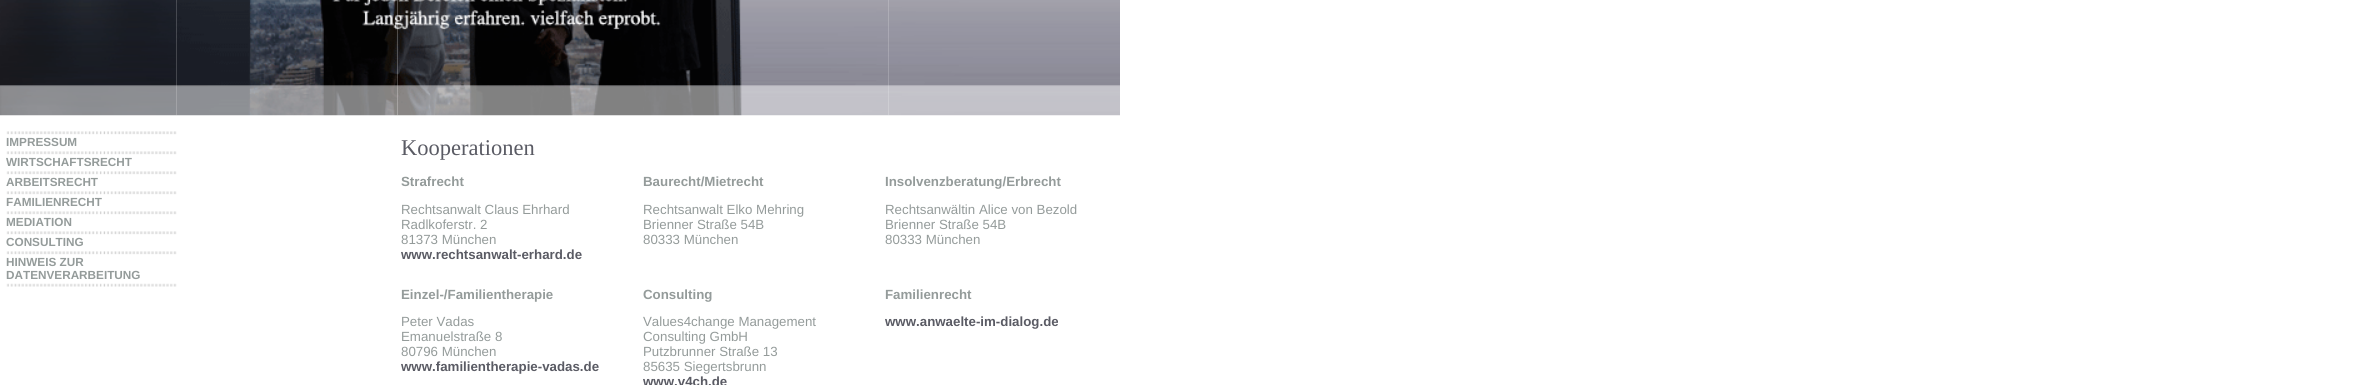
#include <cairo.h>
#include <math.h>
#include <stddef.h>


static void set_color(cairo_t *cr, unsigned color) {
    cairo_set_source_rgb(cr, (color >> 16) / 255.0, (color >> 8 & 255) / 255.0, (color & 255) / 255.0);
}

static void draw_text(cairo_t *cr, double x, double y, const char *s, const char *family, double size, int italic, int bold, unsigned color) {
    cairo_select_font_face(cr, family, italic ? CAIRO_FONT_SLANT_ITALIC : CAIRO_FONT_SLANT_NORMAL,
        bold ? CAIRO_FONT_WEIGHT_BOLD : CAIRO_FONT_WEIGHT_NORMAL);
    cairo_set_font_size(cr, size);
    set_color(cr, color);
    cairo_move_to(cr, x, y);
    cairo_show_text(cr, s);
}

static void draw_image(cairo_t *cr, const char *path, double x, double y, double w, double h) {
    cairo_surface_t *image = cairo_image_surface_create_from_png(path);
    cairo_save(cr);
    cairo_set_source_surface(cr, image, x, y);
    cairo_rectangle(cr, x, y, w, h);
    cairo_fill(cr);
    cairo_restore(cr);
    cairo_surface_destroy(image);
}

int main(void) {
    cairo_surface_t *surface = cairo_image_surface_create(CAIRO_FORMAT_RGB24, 2365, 385);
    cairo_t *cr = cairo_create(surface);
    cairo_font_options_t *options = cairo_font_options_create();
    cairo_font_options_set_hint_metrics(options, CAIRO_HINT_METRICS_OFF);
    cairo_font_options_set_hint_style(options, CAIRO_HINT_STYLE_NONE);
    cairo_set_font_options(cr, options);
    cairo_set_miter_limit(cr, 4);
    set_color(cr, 0xFFFFFF);
    cairo_paint(cr);
    draw_image(cr, "assets/img1.png", 0, 0, 177, 116);
    draw_image(cr, "assets/img2.png", 176, 0, 222, 116);
    draw_image(cr, "assets/img3.png", 397, 0, 248, 116);
    draw_image(cr, "assets/img4.png", 645, 0, 244, 116);
    draw_image(cr, "assets/img5.png", 888, 0, 232, 116);
    draw_image(cr, "assets/img6.png", 6, 131, 171, 4);
    draw_text(cr, 6, 146, "IMPRESSUM", "Liberation Sans", 11.75, 0, 1, 0x949B9A);
    draw_image(cr, "assets/img6.png", 6, 151, 171, 4);
    draw_text(cr, 6, 166, "WIRTSCHAFTSRECHT", "Liberation Sans", 11.75, 0, 1, 0x949B9A);
    draw_image(cr, "assets/img6.png", 6, 171, 171, 4);
    draw_text(cr, 6, 186, "ARBEITSRECHT", "Liberation Sans", 11.75, 0, 1, 0x949B9A);
    draw_image(cr, "assets/img6.png", 6, 191, 171, 4);
    draw_text(cr, 6, 206, "FAMILIENRECHT", "Liberation Sans", 11.75, 0, 1, 0x949B9A);
    draw_image(cr, "assets/img6.png", 6, 211, 171, 4);
    draw_text(cr, 6, 226, "MEDIATION", "Liberation Sans", 11.75, 0, 1, 0x949B9A);
    draw_image(cr, "assets/img6.png", 6, 231, 171, 4);
    draw_text(cr, 6, 246, "CONSULTING", "Liberation Sans", 11.75, 0, 1, 0x949B9A);
    draw_image(cr, "assets/img6.png", 6, 251, 171, 4);
    draw_text(cr, 6, 266, "HINWEIS ZUR", "Liberation Sans", 11.75, 0, 1, 0x949B9A);
    draw_text(cr, 6, 279, "DATENVERARBEITUNG", "Liberation Sans", 11.75, 0, 1, 0x949B9A);
    draw_image(cr, "assets/img7.png", 6, 283, 171, 4);
    draw_text(cr, 401, 155, "Kooperationen", "Liberation Serif", 22.5, 0, 0, 0x5A5B64);
    draw_text(cr, 401, 186, "Strafrecht", "Liberation Sans", 13.3, 0, 1, 0x949B9A);
    draw_text(cr, 643, 186, "Baurecht/Mietrecht", "Liberation Sans", 13.3, 0, 1, 0x949B9A);
    draw_text(cr, 885, 186, "Insolvenzberatung/Erbrecht", "Liberation Sans", 13.3, 0, 1, 0x949B9A);
    draw_text(cr, 401, 214, "Rechtsanwalt Claus Ehrhard", "Liberation Sans", 13.3, 0, 0, 0x949B9A);
    draw_text(cr, 401, 229, "Radlkoferstr. 2", "Liberation Sans", 13.3, 0, 0, 0x949B9A);
    draw_text(cr, 401, 244, "81373 München", "Liberation Sans", 13.3, 0, 0, 0x949B9A);
    draw_text(cr, 401, 259, "www.rechtsanwalt-erhard.de", "Liberation Sans", 13.3, 0, 1, 0x5A5B64);
    draw_text(cr, 643, 214, "Rechtsanwalt Elko Mehring", "Liberation Sans", 13.3, 0, 0, 0x949B9A);
    draw_text(cr, 643, 229, "Brienner Straße 54B", "Liberation Sans", 13.3, 0, 0, 0x949B9A);
    draw_text(cr, 643, 244, "80333 München", "Liberation Sans", 13.3, 0, 0, 0x949B9A);
    draw_text(cr, 885, 214, "Rechtsanwältin Alice von Bezold", "Liberation Sans", 13.3, 0, 0, 0x949B9A);
    draw_text(cr, 885, 229, "Brienner Straße 54B", "Liberation Sans", 13.3, 0, 0, 0x949B9A);
    draw_text(cr, 885, 244, "80333 München", "Liberation Sans", 13.3, 0, 0, 0x949B9A);
    draw_text(cr, 401, 299, "Einzel-/Familientherapie", "Liberation Sans", 13.3, 0, 1, 0x949B9A);
    draw_text(cr, 643, 299, "Consulting", "Liberation Sans", 13.3, 0, 1, 0x949B9A);
    draw_text(cr, 885, 299, "Familienrecht", "Liberation Sans", 13.3, 0, 1, 0x949B9A);
    draw_text(cr, 401, 326, "Peter Vadas", "Liberation Sans", 13.3, 0, 0, 0x949B9A);
    draw_text(cr, 401, 341, "Emanuelstraße 8", "Liberation Sans", 13.3, 0, 0, 0x949B9A);
    draw_text(cr, 401, 356, "80796 München", "Liberation Sans", 13.3, 0, 0, 0x949B9A);
    draw_text(cr, 401, 371, "www.familientherapie-vadas.de", "Liberation Sans", 13.3, 0, 1, 0x5A5B64);
    draw_text(cr, 643, 326, "Values4change Management", "Liberation Sans", 13.3, 0, 0, 0x949B9A);
    draw_text(cr, 643, 341, "Consulting GmbH", "Liberation Sans", 13.3, 0, 0, 0x949B9A);
    draw_text(cr, 643, 356, "Putzbrunner Straße 13", "Liberation Sans", 13.3, 0, 0, 0x949B9A);
    draw_text(cr, 643, 371, "85635 Siegertsbrunn", "Liberation Sans", 13.3, 0, 0, 0x949B9A);
    draw_text(cr, 643, 386, "www.v4ch.de", "Liberation Sans", 13.3, 0, 1, 0x5A5B64);
    draw_text(cr, 885, 326, "www.anwaelte-im-dialog.de", "Liberation Sans", 13.3, 0, 1, 0x5A5B64);
    cairo_surface_write_to_png(surface, "output.png");
    cairo_font_options_destroy(options);
    cairo_destroy(cr);
    cairo_surface_destroy(surface);
    return 0;
}
